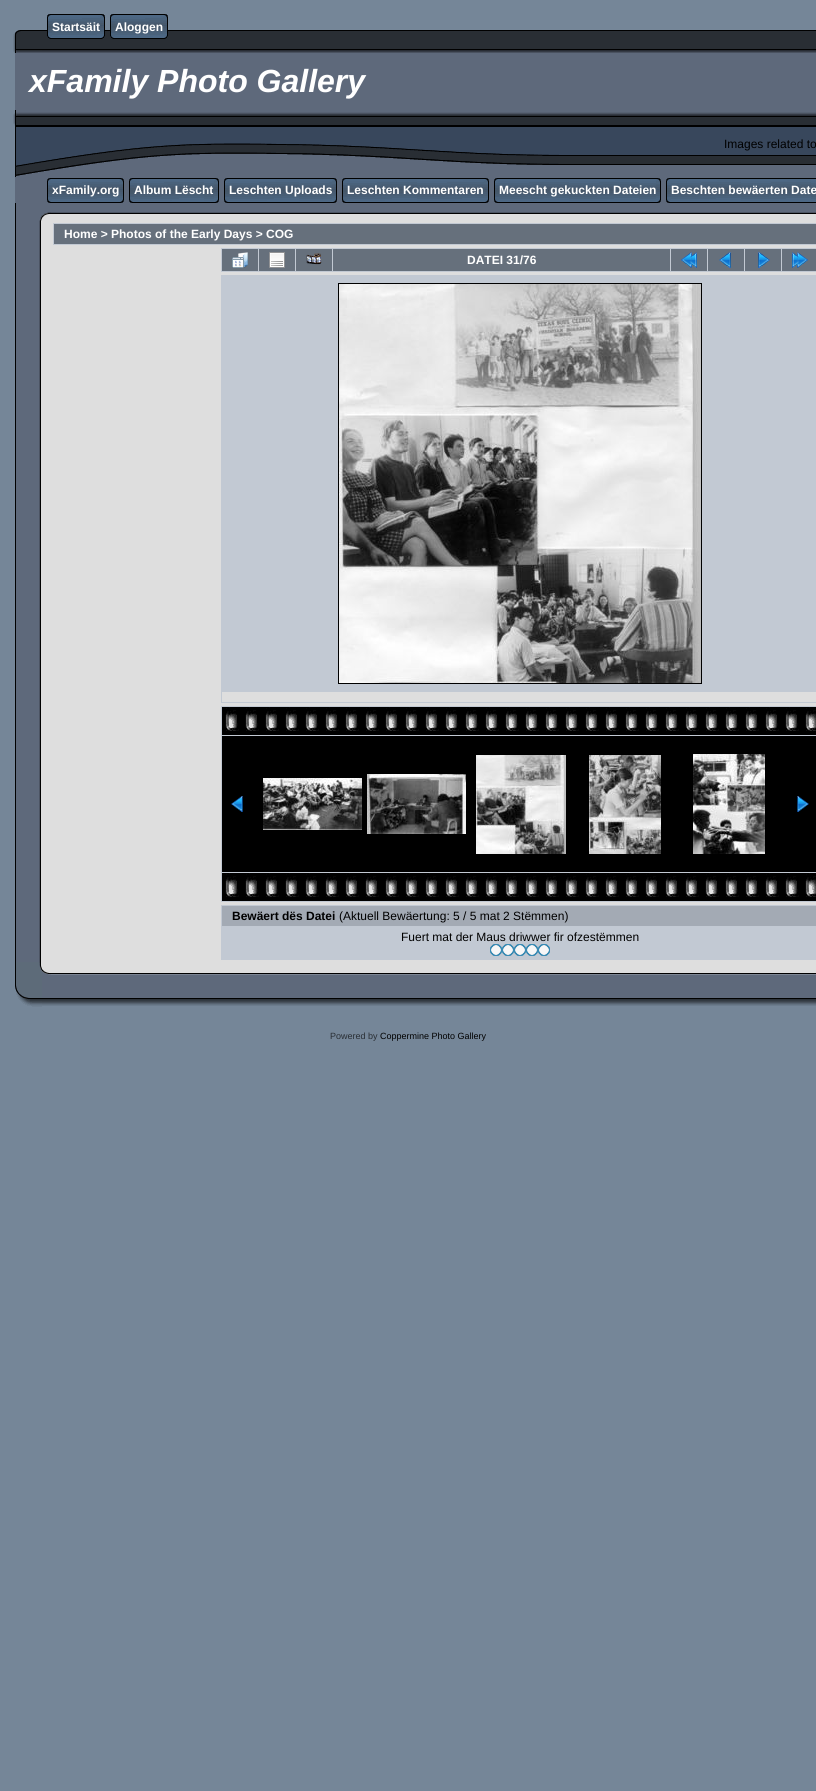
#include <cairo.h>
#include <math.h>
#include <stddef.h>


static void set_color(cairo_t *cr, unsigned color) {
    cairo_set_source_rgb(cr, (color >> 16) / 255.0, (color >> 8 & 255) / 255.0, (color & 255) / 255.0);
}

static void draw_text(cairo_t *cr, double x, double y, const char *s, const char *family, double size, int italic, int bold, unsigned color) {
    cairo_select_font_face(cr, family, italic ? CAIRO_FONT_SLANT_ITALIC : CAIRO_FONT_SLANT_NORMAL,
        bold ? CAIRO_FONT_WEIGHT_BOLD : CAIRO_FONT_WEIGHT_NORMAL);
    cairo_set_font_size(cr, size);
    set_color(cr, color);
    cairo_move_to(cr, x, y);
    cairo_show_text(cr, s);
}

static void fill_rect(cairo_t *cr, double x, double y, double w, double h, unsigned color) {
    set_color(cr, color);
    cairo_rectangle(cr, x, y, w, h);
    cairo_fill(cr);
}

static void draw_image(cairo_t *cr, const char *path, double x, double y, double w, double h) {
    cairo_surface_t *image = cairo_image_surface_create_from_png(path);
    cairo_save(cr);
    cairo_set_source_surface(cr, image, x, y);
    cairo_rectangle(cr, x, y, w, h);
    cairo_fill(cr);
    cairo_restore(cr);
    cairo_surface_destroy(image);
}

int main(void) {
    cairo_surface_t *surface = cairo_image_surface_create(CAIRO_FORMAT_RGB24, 816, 1791);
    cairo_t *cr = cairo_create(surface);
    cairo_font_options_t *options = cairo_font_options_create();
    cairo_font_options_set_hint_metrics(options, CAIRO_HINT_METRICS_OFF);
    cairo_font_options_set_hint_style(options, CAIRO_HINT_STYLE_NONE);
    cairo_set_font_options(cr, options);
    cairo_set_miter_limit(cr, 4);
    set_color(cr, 0x758698);
    cairo_paint(cr);
    draw_image(cr, "assets/img1.png", 42, 30, 774, 23);
    draw_image(cr, "assets/img2.png", 47, 14, 5, 25);
    draw_image(cr, "assets/img3.png", 52, 14, 48, 25);
    draw_text(cr, 52, 31, "Startsäit", "Liberation Sans", 12, 0, 1, 0xFFFFFF);
    draw_image(cr, "assets/img4.png", 100, 14, 5, 25);
    draw_image(cr, "assets/img2.png", 110, 14, 5, 25);
    draw_image(cr, "assets/img3.png", 115, 14, 48, 25);
    draw_text(cr, 115, 31, "Aloggen", "Liberation Sans", 12, 0, 1, 0xFFFFFF);
    draw_image(cr, "assets/img4.png", 163, 14, 5, 25);
    draw_image(cr, "assets/img5.png", 13, 30, 29, 23);
    fill_rect(cr, 15, 53, 801, 57, 0x5E697B);
    draw_text(cr, 29, 92, "xFamily Photo Gallery", "Liberation Sans", 32, 1, 1, 0xFFFFFF);
    draw_image(cr, "assets/img6.png", 13, 110, 547, 67);
    draw_image(cr, "assets/img7.png", 560, 110, 256, 67);
    draw_text(cr, 724, 148, "Images related to", "Liberation Sans", 12, 0, 0, 0x000000);
    fill_rect(cr, 15, 177, 801, 26, 0x5E697B);
    draw_image(cr, "assets/img8.png", 47, 178, 5, 25);
    draw_image(cr, "assets/img9.png", 52, 178, 67, 25);
    draw_text(cr, 52, 194, "xFamily.org", "Liberation Sans", 12, 0, 1, 0xFFFFFF);
    draw_image(cr, "assets/img10.png", 119, 178, 5, 25);
    draw_image(cr, "assets/img8.png", 129, 178, 5, 25);
    draw_image(cr, "assets/img11.png", 134, 178, 80, 25);
    draw_text(cr, 134, 194, "Album Lëscht", "Liberation Sans", 12, 0, 1, 0xFFFFFF);
    draw_image(cr, "assets/img10.png", 214, 178, 5, 25);
    draw_image(cr, "assets/img8.png", 224, 178, 5, 25);
    draw_image(cr, "assets/img12.png", 229, 178, 103, 25);
    draw_text(cr, 229, 194, "Leschten Uploads", "Liberation Sans", 12, 0, 1, 0xFFFFFF);
    draw_image(cr, "assets/img10.png", 332, 178, 5, 25);
    draw_image(cr, "assets/img8.png", 342, 178, 5, 25);
    draw_image(cr, "assets/img13.png", 347, 178, 137, 25);
    draw_text(cr, 347, 194, "Leschten Kommentaren", "Liberation Sans", 12, 0, 1, 0xFFFFFF);
    draw_image(cr, "assets/img10.png", 484, 178, 5, 25);
    draw_image(cr, "assets/img8.png", 494, 178, 5, 25);
    draw_image(cr, "assets/img14.png", 499, 178, 157, 25);
    draw_text(cr, 499, 194, "Meescht gekuckten Dateien", "Liberation Sans", 12, 0, 1, 0xFFFFFF);
    draw_image(cr, "assets/img10.png", 656, 178, 5, 25);
    draw_image(cr, "assets/img8.png", 666, 178, 5, 25);
    draw_image(cr, "assets/img15.png", 671, 178, 145, 25);
    draw_text(cr, 671, 194, "Beschten bewäerten Date", "Liberation Sans", 12, 0, 1, 0xFFFFFF);
    draw_image(cr, "assets/img16.png", 15, 203, 27, 18);
    draw_image(cr, "assets/img17.png", 42, 203, 14, 18);
    draw_image(cr, "assets/img18.png", 56, 203, 760, 18);
    draw_image(cr, "assets/img19.png", 15, 221, 27, 741);
    fill_rect(cr, 42, 221, 774, 741, 0xDEDEDE);
    fill_rect(cr, 53, 223, 763, 22, 0xC2C9D3);
    fill_rect(cr, 54, 224, 762, 20, 0x66707C);
    draw_text(cr, 64, 238, "Home > Photos of the Early Days > COG", "Liberation Sans", 12, 0, 1, 0xFFFFFF);
    fill_rect(cr, 221, 248, 595, 24, 0xC2C9D3);
    fill_rect(cr, 222, 249, 36, 22, 0x66707C);
    draw_image(cr, "assets/img20.png", 232, 252, 16, 16);
    fill_rect(cr, 259, 249, 36, 22, 0x66707C);
    draw_image(cr, "assets/img21.png", 269, 252, 16, 16);
    fill_rect(cr, 296, 249, 36, 22, 0x66707C);
    draw_image(cr, "assets/img22.png", 306, 253, 16, 12);
    fill_rect(cr, 333, 249, 337, 22, 0x66707C);
    draw_text(cr, 467, 264, "DATEI 31/76", "Liberation Sans", 12, 0, 1, 0xFFFFFF);
    fill_rect(cr, 671, 249, 36, 22, 0x66707C);
    draw_image(cr, "assets/img23.png", 681, 252, 16, 16);
    fill_rect(cr, 708, 249, 36, 22, 0x66707C);
    draw_image(cr, "assets/img24.png", 719, 252, 12, 16);
    fill_rect(cr, 745, 249, 36, 22, 0x66707C);
    draw_image(cr, "assets/img25.png", 758, 252, 12, 16);
    fill_rect(cr, 782, 249, 34, 22, 0x66707C);
    draw_image(cr, "assets/img26.png", 792, 252, 16, 16);
    fill_rect(cr, 221, 275, 595, 428, 0xC2C9D3);
    cairo_rectangle(cr, 338.5, 283.5, 363, 400);
    set_color(cr, 0x000000);
    cairo_set_line_width(cr, 1);
    cairo_stroke(cr);
    draw_image(cr, "assets/img27.png", 339, 284, 362, 399);
    fill_rect(cr, 222, 692, 594, 10, 0xDEDEDE);
    fill_rect(cr, 221, 706, 595, 196, 0xC2C9D3);
    fill_rect(cr, 222, 707, 594, 28, 0x000000);
    draw_image(cr, "assets/img28.png", 225, 707, 591, 24);
    fill_rect(cr, 222, 736, 594, 136, 0x000000);
    draw_image(cr, "assets/img29.png", 231, 796, 12, 16);
    draw_image(cr, "assets/img30.png", 263, 778, 99, 52);
    draw_image(cr, "assets/img31.png", 367, 774, 99, 60);
    draw_image(cr, "assets/img32.png", 476, 755, 90, 99);
    draw_image(cr, "assets/img33.png", 589, 755, 72, 99);
    draw_image(cr, "assets/img34.png", 693, 754, 72, 100);
    draw_image(cr, "assets/img35.png", 797, 796, 12, 16);
    fill_rect(cr, 222, 873, 594, 28, 0x000000);
    draw_image(cr, "assets/img28.png", 225, 873, 591, 24);
    fill_rect(cr, 221, 905, 595, 55, 0xC2C9D3);
    fill_rect(cr, 222, 906, 594, 20, 0xA3AAB4);
    draw_text(cr, 232, 920, "Bewäert dës Datei", "Liberation Sans", 12, 0, 1, 0x000000);
    draw_text(cr, 339, 920, "(Aktuell Bewäertung: 5 / 5 mat 2 Stëmmen)", "Liberation Sans", 12, 0, 0, 0x000000);
    draw_text(cr, 401, 941, "Fuert mat der Maus driwwer fir ofzestëmmen", "Liberation Sans", 12, 0, 0, 0x000000);
    draw_image(cr, "assets/img36.png", 490, 944, 12, 12);
    draw_image(cr, "assets/img36.png", 502, 944, 12, 12);
    draw_image(cr, "assets/img36.png", 514, 944, 12, 12);
    draw_image(cr, "assets/img36.png", 526, 944, 12, 12);
    draw_image(cr, "assets/img36.png", 538, 944, 12, 12);
    draw_image(cr, "assets/img37.png", 15, 962, 27, 45);
    draw_image(cr, "assets/img38.png", 42, 962, 208, 44);
    draw_image(cr, "assets/img39.png", 250, 962, 540, 44);
    draw_image(cr, "assets/img40.png", 790, 962, 26, 44);
    draw_text(cr, 330, 1039, "Powered by", "Liberation Sans", 9, 0, 0, 0x292E34);
    draw_text(cr, 380, 1039, "Coppermine Photo Gallery", "Liberation Sans", 9, 0, 0, 0x000000);
    cairo_surface_write_to_png(surface, "output.png");
    cairo_font_options_destroy(options);
    cairo_destroy(cr);
    cairo_surface_destroy(surface);
    return 0;
}
